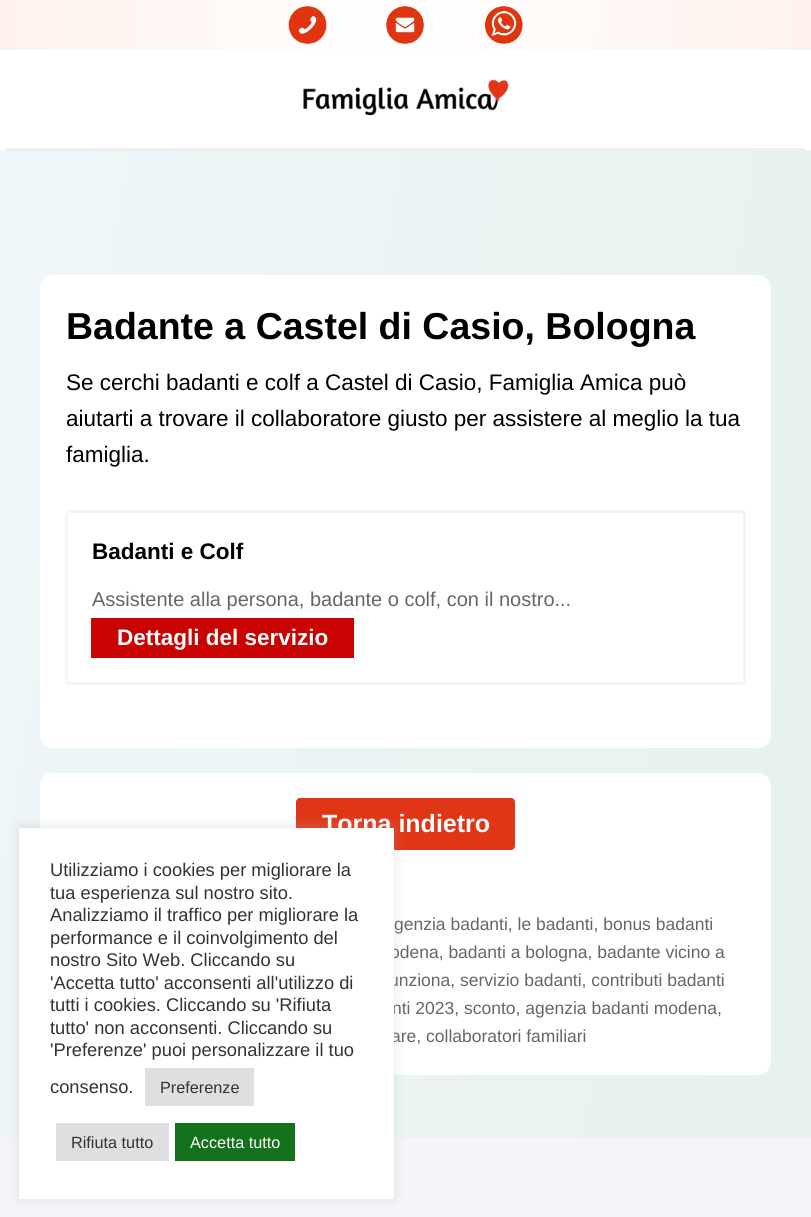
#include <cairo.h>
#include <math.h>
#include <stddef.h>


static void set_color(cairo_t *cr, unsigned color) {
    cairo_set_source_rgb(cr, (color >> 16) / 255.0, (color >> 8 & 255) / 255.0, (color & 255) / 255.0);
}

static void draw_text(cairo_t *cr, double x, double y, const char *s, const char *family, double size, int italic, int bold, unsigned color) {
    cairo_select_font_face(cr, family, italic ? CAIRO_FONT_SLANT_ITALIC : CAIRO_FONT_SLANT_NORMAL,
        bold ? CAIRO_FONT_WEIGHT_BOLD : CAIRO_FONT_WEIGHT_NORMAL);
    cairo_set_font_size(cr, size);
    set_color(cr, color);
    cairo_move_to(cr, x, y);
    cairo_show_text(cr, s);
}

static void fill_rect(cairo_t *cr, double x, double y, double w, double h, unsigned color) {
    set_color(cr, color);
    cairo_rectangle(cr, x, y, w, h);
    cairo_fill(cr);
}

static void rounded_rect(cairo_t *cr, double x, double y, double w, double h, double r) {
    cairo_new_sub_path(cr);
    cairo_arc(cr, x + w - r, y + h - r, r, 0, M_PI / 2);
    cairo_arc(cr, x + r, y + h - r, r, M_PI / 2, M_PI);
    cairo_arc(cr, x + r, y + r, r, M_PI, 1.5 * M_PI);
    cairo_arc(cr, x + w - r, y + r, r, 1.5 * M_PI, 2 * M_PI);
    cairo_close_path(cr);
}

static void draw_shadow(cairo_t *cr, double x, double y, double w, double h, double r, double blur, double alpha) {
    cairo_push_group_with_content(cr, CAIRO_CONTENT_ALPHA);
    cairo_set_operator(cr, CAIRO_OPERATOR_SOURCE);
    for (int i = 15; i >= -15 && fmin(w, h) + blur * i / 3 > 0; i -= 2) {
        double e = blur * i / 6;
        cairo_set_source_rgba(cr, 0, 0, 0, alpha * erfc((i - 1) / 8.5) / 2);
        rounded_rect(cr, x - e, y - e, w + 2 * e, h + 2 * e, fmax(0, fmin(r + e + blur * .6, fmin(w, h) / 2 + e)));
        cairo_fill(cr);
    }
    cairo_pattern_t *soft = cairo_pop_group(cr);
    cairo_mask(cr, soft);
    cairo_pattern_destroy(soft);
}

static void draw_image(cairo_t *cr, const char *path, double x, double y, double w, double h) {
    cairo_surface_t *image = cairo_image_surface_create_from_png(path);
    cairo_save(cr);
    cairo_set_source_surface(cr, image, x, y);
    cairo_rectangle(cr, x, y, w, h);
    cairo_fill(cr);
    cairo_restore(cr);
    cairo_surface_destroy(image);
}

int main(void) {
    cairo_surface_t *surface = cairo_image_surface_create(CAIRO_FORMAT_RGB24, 811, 1217);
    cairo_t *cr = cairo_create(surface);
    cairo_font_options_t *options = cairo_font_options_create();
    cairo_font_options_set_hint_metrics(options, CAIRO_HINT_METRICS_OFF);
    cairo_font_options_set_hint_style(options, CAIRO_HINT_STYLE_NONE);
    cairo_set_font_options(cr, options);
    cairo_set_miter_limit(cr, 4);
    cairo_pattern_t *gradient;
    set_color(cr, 0xFFFFFF);
    cairo_paint(cr);
    gradient = cairo_pattern_create_radial(406, 0, 0, 406, 0, 409);
    cairo_pattern_add_color_stop_rgba(gradient, 0, 1, 1, 1, 1);
    cairo_pattern_add_color_stop_rgba(gradient, 1, 1, 0.949, 0.929, 1);
    cairo_set_source(cr, gradient);
    cairo_pattern_destroy(gradient);
    cairo_rectangle(cr, 0, 0, 811, 50);
    cairo_fill(cr);
    draw_image(cr, "assets/img1.png", 288, 6, 39, 38);
    draw_image(cr, "assets/img2.png", 386, 6, 38, 38);
    draw_image(cr, "assets/img3.png", 485, 6, 38, 38);
    draw_image(cr, "assets/img4.png", 303, 79, 206, 37);
    gradient = cairo_pattern_create_linear(-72, 559, 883, 728);
    cairo_pattern_add_color_stop_rgba(gradient, 0, 0.937, 0.965, 0.98, 1);
    cairo_pattern_add_color_stop_rgba(gradient, 0.94, 0.906, 0.949, 0.933, 1);
    cairo_set_source(cr, gradient);
    cairo_pattern_destroy(gradient);
    cairo_rectangle(cr, 0, 150, 811, 988);
    cairo_fill(cr);
    fill_rect(cr, 6, 148, 799, 3, 0xEEEEEE);
    set_color(cr, 0xFFFFFF);
    rounded_rect(cr, 40, 275, 731, 473, 13);
    cairo_fill(cr);
    draw_text(cr, 66, 339, "Badante a Castel di Casio, Bologna", "Liberation Sans", 37.5, 0, 1, 0x000000);
    draw_text(cr, 66, 390, "Se cerchi badanti e colf a Castel di Casio, Famiglia Amica può", "Liberation Sans", 22.5, 0, 0, 0x000000);
    draw_text(cr, 66, 426, "aiutarti a trovare il collaboratore giusto per assistere al meglio la tua", "Liberation Sans", 22.5, 0, 0, 0x000000);
    draw_text(cr, 66, 462, "famiglia.", "Liberation Sans", 22.5, 0, 0, 0x000000);
    rounded_rect(cr, 66.5, 511.5, 678, 172, 2.5);
    set_color(cr, 0xF4F4F9);
    cairo_set_line_width(cr, 3);
    cairo_stroke(cr);
    draw_text(cr, 92, 559, "Badanti e Colf", "Liberation Sans", 22.5, 0, 1, 0x000000);
    draw_text(cr, 92, 606, "Assistente alla persona, badante o colf, con il nostro...", "Liberation Sans", 20, 0, 0, 0x666666);
    fill_rect(cr, 91, 618, 263, 40, 0xC90202);
    draw_text(cr, 117, 645, "Dettagli del servizio", "Liberation Sans", 22.5, 0, 1, 0xFFFFFF);
    rounded_rect(cr, 40, 773, 731, 302, 13);
    cairo_fill(cr);
    set_color(cr, 0xE03616);
    rounded_rect(cr, 296, 798, 219, 52, 4);
    cairo_fill(cr);
    draw_text(cr, 322, 832, "Torna indietro", "Liberation Sans", 25, 0, 1, 0xFFFFFF);
    draw_text(cr, 394, 930, "genzia badanti, le badanti, bonus badanti", "Liberation Sans", 17.5, 0, 0, 0x666666);
    draw_text(cr, 390, 958, "odena, badanti a bologna, badante vicino a", "Liberation Sans", 17.5, 0, 0, 0x666666);
    draw_text(cr, 389, 986, "unziona, servizio badanti, contributi badanti", "Liberation Sans", 17.5, 0, 0, 0x666666);
    draw_text(cr, 392, 1014, "nti 2023, sconto, agenzia badanti modena,", "Liberation Sans", 17.5, 0, 0, 0x666666);
    draw_text(cr, 391, 1042, "are, collaboratori familiari", "Liberation Sans", 17.5, 0, 0, 0x666666);
    fill_rect(cr, 0, 1138, 811, 79, 0xF4F4F9);
    set_color(cr, 0xACABAB);
    draw_shadow(cr, 19, 826, 375, 372, 0, 6, 0.3);
    fill_rect(cr, 19, 828, 375, 371, 0xFFFFFF);
    draw_text(cr, 50, 876, "Utilizziamo i cookies per migliorare la", "Liberation Sans", 18.3, 0, 0, 0x333333);
    draw_text(cr, 50, 899, "tua esperienza sul nostro sito.", "Liberation Sans", 18.3, 0, 0, 0x333333);
    draw_text(cr, 50, 921, "Analizziamo il traffico per migliorare la", "Liberation Sans", 18.3, 0, 0, 0x333333);
    draw_text(cr, 50, 944, "performance e il coinvolgimento del", "Liberation Sans", 18.3, 0, 0, 0x333333);
    draw_text(cr, 50, 966, "nostro Sito Web. Cliccando su", "Liberation Sans", 18.3, 0, 0, 0x333333);
    draw_text(cr, 50, 989, "'Accetta tutto' acconsenti all'utilizzo di", "Liberation Sans", 18.3, 0, 0, 0x333333);
    draw_text(cr, 50, 1011, "tutti i cookies. Cliccando su 'Rifiuta", "Liberation Sans", 18.3, 0, 0, 0x333333);
    draw_text(cr, 50, 1034, "tutto' non acconsenti. Cliccando su", "Liberation Sans", 18.3, 0, 0, 0x333333);
    draw_text(cr, 50, 1056, "'Preferenze' puoi personalizzare il tuo", "Liberation Sans", 18.3, 0, 0, 0x333333);
    draw_text(cr, 50, 1093, "consenso.", "Liberation Sans", 18.3, 0, 0, 0x333333);
    fill_rect(cr, 145, 1068, 109, 38, 0xDEDFE0);
    draw_text(cr, 160, 1093, "Preferenze", "Liberation Sans", 16.25, 0, 0, 0x333333);
    fill_rect(cr, 56, 1123, 113, 38, 0xDEDFE0);
    draw_text(cr, 71, 1148, "Rifiuta tutto", "Liberation Sans", 16.25, 0, 0, 0x333333);
    fill_rect(cr, 175, 1123, 120, 38, 0x14721E);
    draw_text(cr, 190, 1148, "Accetta tutto", "Liberation Sans", 16.25, 0, 0, 0xFFFFFF);
    cairo_surface_write_to_png(surface, "output.png");
    cairo_font_options_destroy(options);
    cairo_destroy(cr);
    cairo_surface_destroy(surface);
    return 0;
}
